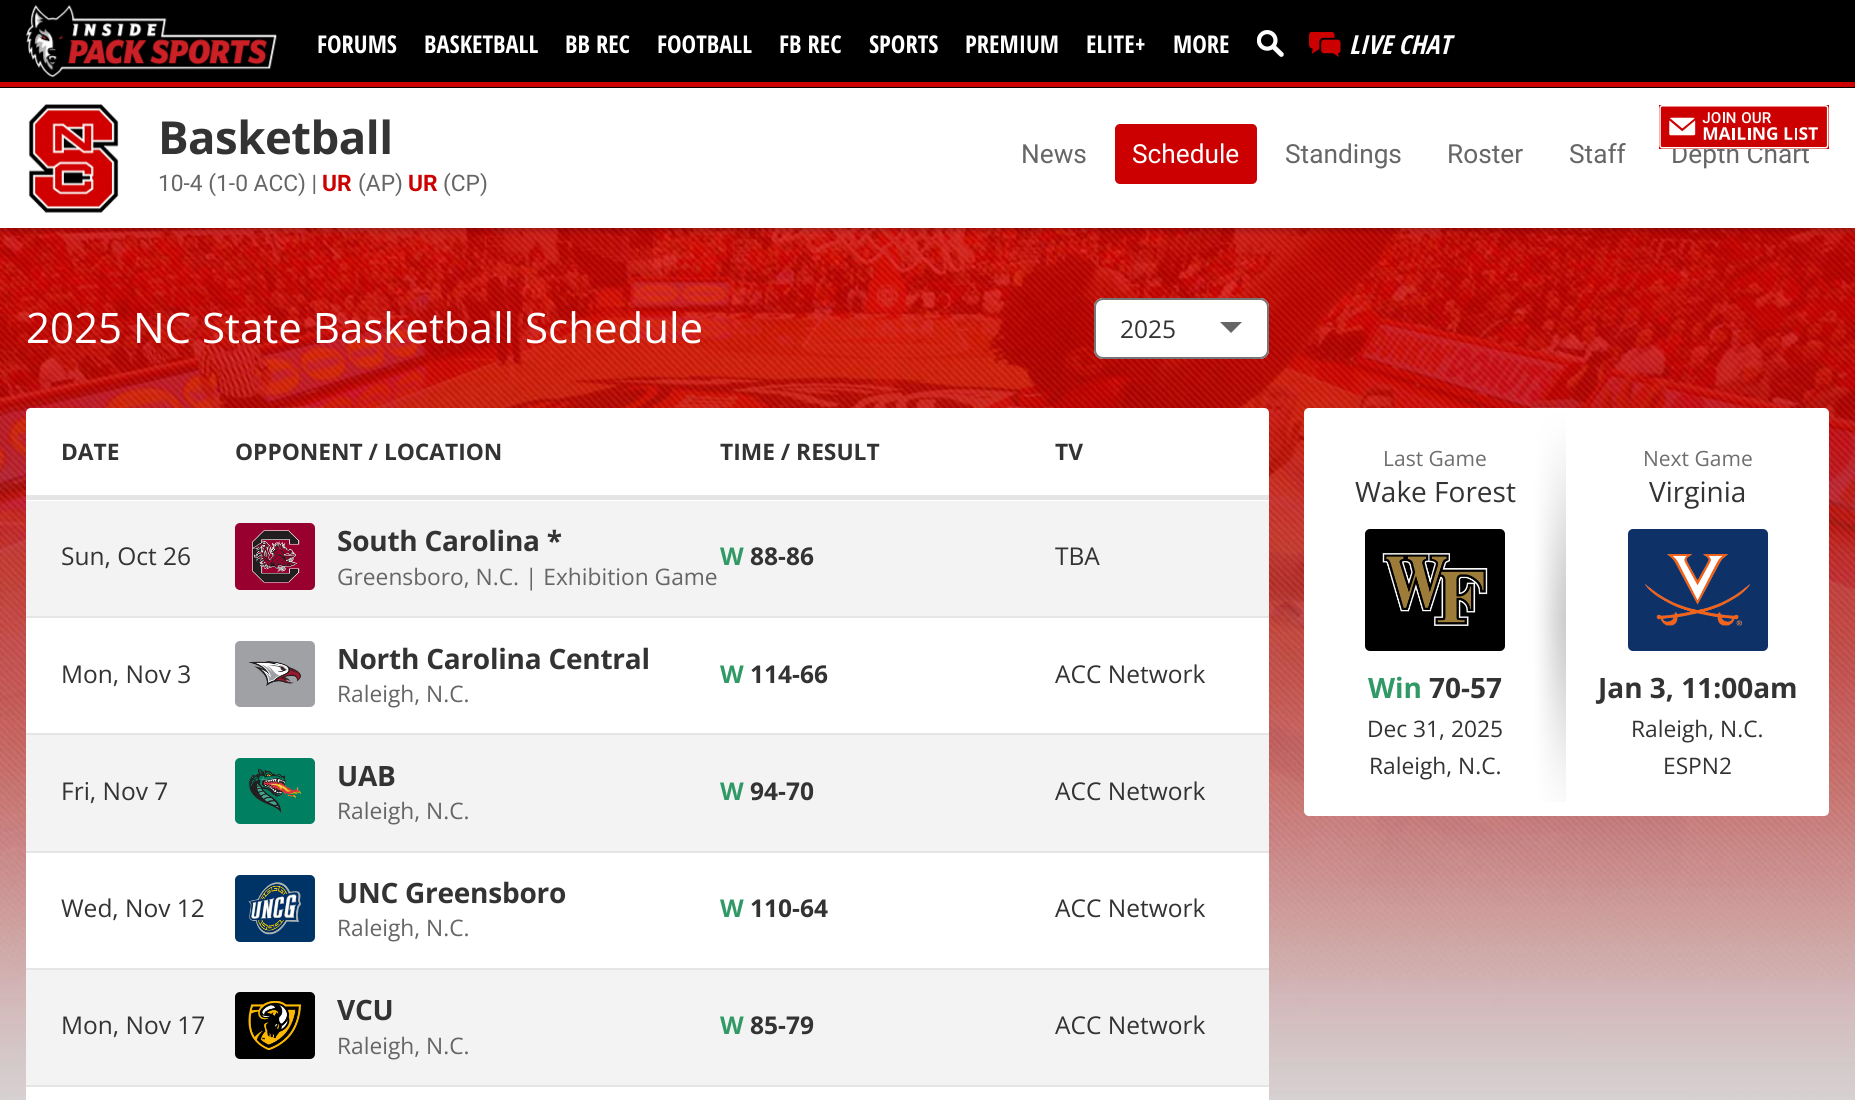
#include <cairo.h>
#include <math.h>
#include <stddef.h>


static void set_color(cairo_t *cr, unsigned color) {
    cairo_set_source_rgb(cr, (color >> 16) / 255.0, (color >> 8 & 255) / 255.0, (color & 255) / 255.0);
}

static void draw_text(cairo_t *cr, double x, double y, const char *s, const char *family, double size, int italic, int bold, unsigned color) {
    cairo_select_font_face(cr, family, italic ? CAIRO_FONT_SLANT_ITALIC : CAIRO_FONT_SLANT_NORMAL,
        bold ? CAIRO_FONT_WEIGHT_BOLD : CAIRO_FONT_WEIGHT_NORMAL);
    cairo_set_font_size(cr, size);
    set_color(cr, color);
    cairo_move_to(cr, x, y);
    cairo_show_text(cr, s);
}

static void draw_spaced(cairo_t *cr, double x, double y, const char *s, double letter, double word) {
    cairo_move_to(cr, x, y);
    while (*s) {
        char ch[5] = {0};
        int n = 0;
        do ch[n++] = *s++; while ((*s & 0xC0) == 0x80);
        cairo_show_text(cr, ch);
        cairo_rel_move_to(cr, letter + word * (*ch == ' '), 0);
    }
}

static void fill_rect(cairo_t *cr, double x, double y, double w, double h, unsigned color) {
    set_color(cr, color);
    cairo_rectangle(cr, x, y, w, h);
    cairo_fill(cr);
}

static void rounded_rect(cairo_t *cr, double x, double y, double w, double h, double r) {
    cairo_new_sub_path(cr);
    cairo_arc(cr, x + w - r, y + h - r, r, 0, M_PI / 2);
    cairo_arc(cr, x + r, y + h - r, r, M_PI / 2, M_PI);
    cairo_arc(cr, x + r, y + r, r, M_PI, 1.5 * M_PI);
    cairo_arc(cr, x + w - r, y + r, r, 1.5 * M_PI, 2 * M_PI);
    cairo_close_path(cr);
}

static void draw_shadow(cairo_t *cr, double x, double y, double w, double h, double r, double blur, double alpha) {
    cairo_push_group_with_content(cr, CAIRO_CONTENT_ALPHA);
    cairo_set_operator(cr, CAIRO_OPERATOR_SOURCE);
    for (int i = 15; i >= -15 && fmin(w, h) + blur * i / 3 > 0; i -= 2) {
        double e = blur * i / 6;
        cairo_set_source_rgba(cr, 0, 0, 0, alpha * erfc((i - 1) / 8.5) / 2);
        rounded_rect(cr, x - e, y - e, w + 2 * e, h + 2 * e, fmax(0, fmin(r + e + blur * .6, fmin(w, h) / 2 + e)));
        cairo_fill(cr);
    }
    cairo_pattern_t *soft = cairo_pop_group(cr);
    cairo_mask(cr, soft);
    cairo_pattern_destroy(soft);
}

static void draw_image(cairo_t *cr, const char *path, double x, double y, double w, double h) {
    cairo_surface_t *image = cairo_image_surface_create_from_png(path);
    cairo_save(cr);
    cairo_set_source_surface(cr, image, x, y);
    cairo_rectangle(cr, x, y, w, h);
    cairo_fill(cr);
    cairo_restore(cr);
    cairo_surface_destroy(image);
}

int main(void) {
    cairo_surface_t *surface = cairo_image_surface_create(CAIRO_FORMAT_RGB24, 1855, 1100);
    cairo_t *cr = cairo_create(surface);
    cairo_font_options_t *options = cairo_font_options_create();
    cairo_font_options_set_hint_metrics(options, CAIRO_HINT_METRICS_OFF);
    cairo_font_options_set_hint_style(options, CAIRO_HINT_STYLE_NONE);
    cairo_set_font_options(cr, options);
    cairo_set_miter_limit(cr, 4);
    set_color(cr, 0xFFFFFF);
    cairo_paint(cr);
    draw_image(cr, "assets/img5.png", 0, 228, 1855, 872);
    cairo_save(cr);
    cairo_set_fill_rule(cr, CAIRO_FILL_RULE_EVEN_ODD);
    cairo_new_path(cr);
    cairo_move_to(cr, 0, 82);
    cairo_line_to(cr, 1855, 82);
    cairo_line_to(cr, 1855, 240);
    cairo_line_to(cr, 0, 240);
    cairo_close_path(cr);
    cairo_move_to(cr, 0, 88);
    cairo_line_to(cr, 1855, 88);
    cairo_line_to(cr, 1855, 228);
    cairo_line_to(cr, 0, 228);
    cairo_close_path(cr);
    cairo_clip(cr);
    set_color(cr, 0x000000);
    draw_shadow(cr, 0, 91, 1855, 140, 0, 2.5, 0.2);
    cairo_restore(cr);
    fill_rect(cr, 0, 0, 1855, 88, 0x000000);
    fill_rect(cr, 0, 82, 1855, 5, 0xCC0000);
    draw_image(cr, "assets/img1.png", 26, 5, 251, 73);
    draw_text(cr, 317, 53, "FORUMS", "Open Sans Condensed", 24.5, 0, 1, 0xFFFFFF);
    draw_text(cr, 424, 53, "BASKETBALL", "Open Sans Condensed", 24.5, 0, 1, 0xFFFFFF);
    draw_text(cr, 565, 53, "BB REC", "Open Sans Condensed", 24.5, 0, 1, 0xFFFFFF);
    draw_text(cr, 657, 53, "FOOTBALL", "Open Sans Condensed", 24.5, 0, 1, 0xFFFFFF);
    draw_text(cr, 779, 53, "FB REC", "Open Sans Condensed", 24.5, 0, 1, 0xFFFFFF);
    draw_text(cr, 869, 53, "SPORTS", "Open Sans Condensed", 24.5, 0, 1, 0xFFFFFF);
    draw_text(cr, 965, 53, "PREMIUM", "Open Sans Condensed", 24.5, 0, 1, 0xFFFFFF);
    draw_text(cr, 1086, 53, "ELITE+", "Open Sans Condensed", 24.5, 0, 1, 0xFFFFFF);
    draw_text(cr, 1173, 53, "MORE", "Open Sans Condensed", 24.5, 0, 1, 0xFFFFFF);
    draw_image(cr, "assets/img2.png", 1257, 30, 27, 27);
    draw_image(cr, "assets/img3.png", 1309, 32, 32, 25);
    draw_text(cr, 1349, 54, "LIVE CHAT", "Open Sans Condensed", 26.25, 1, 1, 0xFFFFFF);
    draw_text(cr, 1671, 163, "Depth Chart", "Roboto", 26.25, 0, 0, 0x666666);
    fill_rect(cr, 1659, 105, 170, 44, 0xCC0000);
    draw_image(cr, "assets/img4.png", 1659, 105, 170, 44);
    cairo_set_source_rgba(cr, 1, 1, 1, 0.95);
    cairo_rectangle(cr, 0, 227, 1855, 1);
    cairo_fill(cr);
    draw_image(cr, "assets/img6.png", 28, 104, 91, 109);
    cairo_select_font_face(cr, "Open Sans", CAIRO_FONT_SLANT_NORMAL, CAIRO_FONT_WEIGHT_BOLD);
    cairo_set_font_size(cr, 45.5);
    set_color(cr, 0x333333);
    draw_spaced(cr, 158, 154, "Basketball", -0.5, 0);
    draw_text(cr, 158, 191, "10-4 (1-0 ACC) |", "Roboto", 22.75, 0, 0, 0x666666);
    draw_text(cr, 322, 191, "UR", "Roboto", 22.75, 0, 1, 0xCC0000);
    draw_text(cr, 358, 191, "(AP)", "Roboto", 22.75, 0, 0, 0x666666);
    draw_text(cr, 408, 191, "UR", "Roboto", 22.75, 0, 1, 0xCC0000);
    draw_text(cr, 443, 191, "(CP)", "Roboto", 22.75, 0, 0, 0x666666);
    draw_text(cr, 1021, 163, "News", "Roboto", 26.25, 0, 0, 0x666666);
    set_color(cr, 0xCC0000);
    rounded_rect(cr, 1115, 124, 142, 60, 5);
    cairo_fill(cr);
    draw_text(cr, 1132, 163, "Schedule", "Roboto", 26.25, 0, 0, 0xFFFFFF);
    draw_text(cr, 1285, 163, "Standings", "Roboto", 26.25, 0, 0, 0x666666);
    draw_text(cr, 1447, 163, "Roster", "Roboto", 26.25, 0, 0, 0x666666);
    draw_text(cr, 1569, 163, "Staff", "Roboto", 26.25, 0, 0, 0x666666);
    draw_text(cr, 26, 343, "2025 NC State Basketball Schedule", "Open Sans", 42, 0, 0, 0xFFFFFF);
    rounded_rect(cr, 1094, 298, 175, 61, 9);
    cairo_fill(cr);
    set_color(cr, 0x666666);
    cairo_new_path(cr);
    cairo_move_to(cr, 1220, 322);
    cairo_line_to(cr, 1231, 333);
    cairo_line_to(cr, 1242, 322);
    cairo_close_path(cr);
    cairo_fill(cr);
    rounded_rect(cr, 1095, 299, 173, 59, 8);
    set_color(cr, 0x767676);
    cairo_stroke(cr);
    draw_text(cr, 1120, 338, "2025", "Open Sans", 24.5, 0, 0, 0x333333);
    set_color(cr, 0xFFFFFF);
    cairo_new_path(cr);
    cairo_move_to(cr, 31, 408);
    cairo_line_to(cr, 1264, 408);
    cairo_curve_to(cr, 1267, 408, 1269, 410, 1269, 413);
    cairo_line_to(cr, 1269, 501);
    cairo_line_to(cr, 26, 501);
    cairo_line_to(cr, 26, 413);
    cairo_curve_to(cr, 26, 410, 28, 408, 31, 408);
    cairo_close_path(cr);
    cairo_fill(cr);
    fill_rect(cr, 26, 495, 1243, 5, 0xE5E5E5);
    draw_text(cr, 61, 460, "DATE", "Open Sans", 22.75, 0, 1, 0x333333);
    draw_text(cr, 235, 460, "OPPONENT / LOCATION", "Open Sans", 22.75, 0, 1, 0x333333);
    draw_text(cr, 720, 460, "TIME / RESULT", "Open Sans", 22.75, 0, 1, 0x333333);
    draw_text(cr, 1055, 460, "TV", "Open Sans", 22.75, 0, 1, 0x333333);
    fill_rect(cr, 26, 501, 1243, 115, 0xF3F3F3);
    draw_text(cr, 61, 565, "Sun, Oct 26", "Open Sans", 24.5, 0, 0, 0x333333);
    set_color(cr, 0x97002F);
    rounded_rect(cr, 235, 523, 80, 67, 5);
    cairo_fill(cr);
    draw_image(cr, "assets/img7.png", 252, 530, 48, 53);
    cairo_select_font_face(cr, "Open Sans", CAIRO_FONT_SLANT_NORMAL, CAIRO_FONT_WEIGHT_BOLD);
    cairo_set_font_size(cr, 28);
    set_color(cr, 0x333333);
    draw_spaced(cr, 337, 551, "South Carolina *", -0.25, 0);
    draw_text(cr, 337, 585, "Greensboro, N.C. | Exhibition Game", "Open Sans", 22.75, 0, 0, 0x666666);
    draw_text(cr, 720, 565, "W", "Open Sans", 24.5, 0, 1, 0x319966);
    draw_text(cr, 750, 565, "88-86", "Open Sans", 24.5, 0, 1, 0x333333);
    draw_text(cr, 1055, 565, "TBA", "Open Sans", 24.5, 0, 0, 0x333333);
    fill_rect(cr, 26, 618, 1243, 115, 0xFFFFFF);
    fill_rect(cr, 26, 616, 1243, 2, 0xE5E5E5);
    fill_rect(cr, 26, 733, 1243, 2, 0xE5E5E5);
    draw_text(cr, 61, 683, "Mon, Nov 3", "Open Sans", 24.5, 0, 0, 0x333333);
    set_color(cr, 0xA0A1A5);
    rounded_rect(cr, 235, 641, 80, 66, 5);
    cairo_fill(cr);
    draw_image(cr, "assets/img8.png", 248, 661, 53, 26);
    cairo_select_font_face(cr, "Open Sans", CAIRO_FONT_SLANT_NORMAL, CAIRO_FONT_WEIGHT_BOLD);
    cairo_set_font_size(cr, 28);
    set_color(cr, 0x333333);
    draw_spaced(cr, 337, 669, "North Carolina Central", -0.25, 0);
    draw_text(cr, 337, 702, "Raleigh, N.C.", "Open Sans", 22.75, 0, 0, 0x666666);
    draw_text(cr, 720, 683, "W", "Open Sans", 24.5, 0, 1, 0x319966);
    draw_text(cr, 750, 683, "114-66", "Open Sans", 24.5, 0, 1, 0x333333);
    draw_text(cr, 1055, 683, "ACC Network", "Open Sans", 24.5, 0, 0, 0x333333);
    fill_rect(cr, 26, 735, 1243, 116, 0xF3F3F3);
    draw_text(cr, 61, 800, "Fri, Nov 7", "Open Sans", 24.5, 0, 0, 0x333333);
    set_color(cr, 0x008061);
    rounded_rect(cr, 235, 758, 80, 66, 5);
    cairo_fill(cr);
    draw_image(cr, "assets/img9.png", 248, 768, 53, 45);
    cairo_select_font_face(cr, "Open Sans", CAIRO_FONT_SLANT_NORMAL, CAIRO_FONT_WEIGHT_BOLD);
    cairo_set_font_size(cr, 28);
    set_color(cr, 0x333333);
    draw_spaced(cr, 337, 786, "UAB", -0.25, 0);
    draw_text(cr, 337, 819, "Raleigh, N.C.", "Open Sans", 22.75, 0, 0, 0x666666);
    draw_text(cr, 720, 800, "W", "Open Sans", 24.5, 0, 1, 0x319966);
    draw_text(cr, 750, 800, "94-70", "Open Sans", 24.5, 0, 1, 0x333333);
    draw_text(cr, 1055, 800, "ACC Network", "Open Sans", 24.5, 0, 0, 0x333333);
    fill_rect(cr, 26, 853, 1243, 115, 0xFFFFFF);
    fill_rect(cr, 26, 851, 1243, 2, 0xE5E5E5);
    fill_rect(cr, 26, 968, 1243, 2, 0xE5E5E5);
    draw_text(cr, 61, 917, "Wed, Nov 12", "Open Sans", 24.5, 0, 0, 0x333333);
    set_color(cr, 0x003366);
    rounded_rect(cr, 235, 875, 80, 67, 5);
    cairo_fill(cr);
    draw_image(cr, "assets/img10.png", 248, 882, 53, 53);
    cairo_select_font_face(cr, "Open Sans", CAIRO_FONT_SLANT_NORMAL, CAIRO_FONT_WEIGHT_BOLD);
    cairo_set_font_size(cr, 28);
    set_color(cr, 0x333333);
    draw_spaced(cr, 337, 903, "UNC Greensboro", -0.25, 0);
    draw_text(cr, 337, 936, "Raleigh, N.C.", "Open Sans", 22.75, 0, 0, 0x666666);
    draw_text(cr, 720, 917, "W", "Open Sans", 24.5, 0, 1, 0x319966);
    draw_text(cr, 750, 917, "110-64", "Open Sans", 24.5, 0, 1, 0x333333);
    draw_text(cr, 1055, 917, "ACC Network", "Open Sans", 24.5, 0, 0, 0x333333);
    fill_rect(cr, 26, 970, 1243, 115, 0xF3F3F3);
    draw_text(cr, 61, 1034, "Mon, Nov 17", "Open Sans", 24.5, 0, 0, 0x333333);
    set_color(cr, 0x000000);
    rounded_rect(cr, 235, 992, 80, 67, 5);
    cairo_fill(cr);
    draw_image(cr, "assets/img11.png", 248, 1001, 53, 49);
    cairo_select_font_face(cr, "Open Sans", CAIRO_FONT_SLANT_NORMAL, CAIRO_FONT_WEIGHT_BOLD);
    cairo_set_font_size(cr, 28);
    set_color(cr, 0x333333);
    draw_spaced(cr, 337, 1020, "VCU", -0.25, 0);
    draw_text(cr, 337, 1054, "Raleigh, N.C.", "Open Sans", 22.75, 0, 0, 0x666666);
    draw_text(cr, 720, 1034, "W", "Open Sans", 24.5, 0, 1, 0x319966);
    draw_text(cr, 750, 1034, "85-79", "Open Sans", 24.5, 0, 1, 0x333333);
    draw_text(cr, 1055, 1034, "ACC Network", "Open Sans", 24.5, 0, 0, 0x333333);
    fill_rect(cr, 26, 1087, 1243, 13, 0xFFFFFF);
    fill_rect(cr, 26, 1085, 1243, 2, 0xE5E5E5);
    set_color(cr, 0xFFFFFF);
    rounded_rect(cr, 1304, 408, 525, 408, 5);
    cairo_fill(cr);
    draw_image(cr, "assets/img12.png", 1531, 407, 35, 395);
    draw_text(cr, 1383, 466, "Last Game", "Open Sans", 21, 0, 0, 0x6E6E6E);
    draw_text(cr, 1355, 502, "Wake Forest", "Open Sans", 28, 0, 0, 0x333333);
    set_color(cr, 0x000000);
    rounded_rect(cr, 1365, 529, 140, 122, 5);
    cairo_fill(cr);
    draw_image(cr, "assets/img13.png", 1382, 553, 106, 73);
    draw_text(cr, 1368, 698, "Win", "Open Sans", 28, 0, 1, 0x319966);
    draw_text(cr, 1429, 698, "70-57", "Open Sans", 28, 0, 1, 0x333333);
    draw_text(cr, 1367, 737, "Dec 31, 2025", "Open Sans", 22.75, 0, 0, 0x333333);
    draw_text(cr, 1369, 774, "Raleigh, N.C.", "Open Sans", 22.75, 0, 0, 0x333333);
    draw_text(cr, 1643, 466, "Next Game", "Open Sans", 21, 0, 0, 0x6E6E6E);
    draw_text(cr, 1649, 502, "Virginia", "Open Sans", 28, 0, 0, 0x333333);
    set_color(cr, 0x0E3167);
    rounded_rect(cr, 1628, 529, 140, 122, 5);
    cairo_fill(cr);
    draw_image(cr, "assets/img14.png", 1645, 554, 105, 72);
    draw_text(cr, 1598, 698, "Jan 3, 11:00am", "Open Sans", 28, 0, 1, 0x333333);
    draw_text(cr, 1631, 737, "Raleigh, N.C.", "Open Sans", 22.75, 0, 0, 0x333333);
    draw_text(cr, 1663, 774, "ESPN2", "Open Sans", 22.75, 0, 0, 0x333333);
    cairo_surface_write_to_png(surface, "output.png");
    cairo_font_options_destroy(options);
    cairo_destroy(cr);
    cairo_surface_destroy(surface);
    return 0;
}
